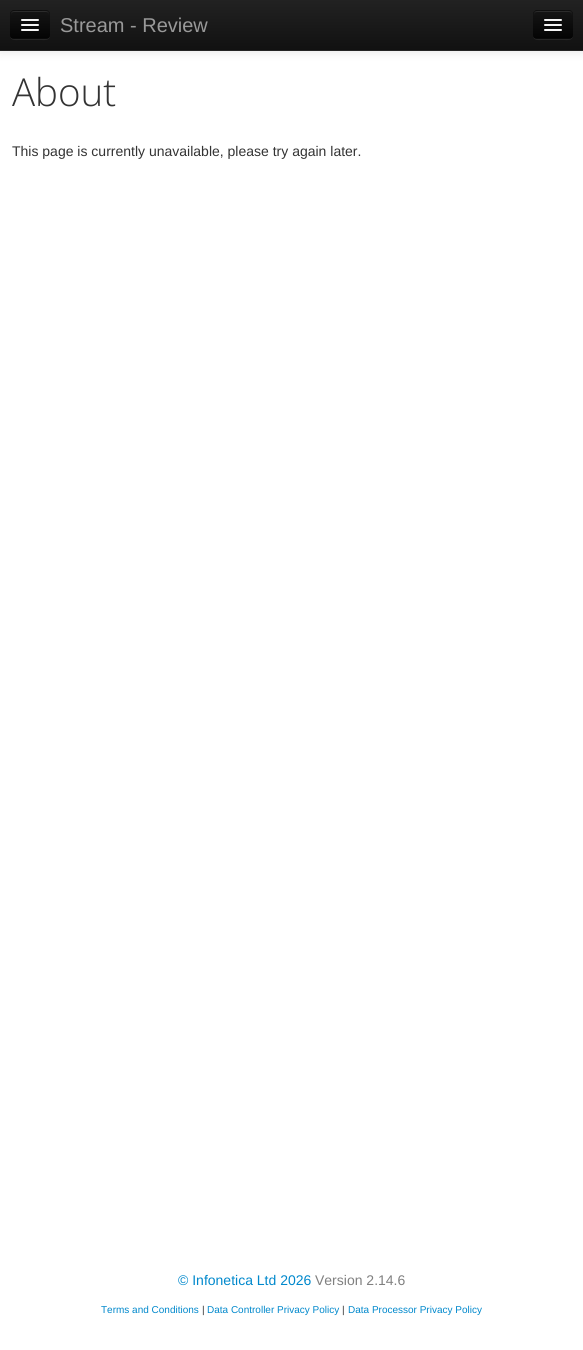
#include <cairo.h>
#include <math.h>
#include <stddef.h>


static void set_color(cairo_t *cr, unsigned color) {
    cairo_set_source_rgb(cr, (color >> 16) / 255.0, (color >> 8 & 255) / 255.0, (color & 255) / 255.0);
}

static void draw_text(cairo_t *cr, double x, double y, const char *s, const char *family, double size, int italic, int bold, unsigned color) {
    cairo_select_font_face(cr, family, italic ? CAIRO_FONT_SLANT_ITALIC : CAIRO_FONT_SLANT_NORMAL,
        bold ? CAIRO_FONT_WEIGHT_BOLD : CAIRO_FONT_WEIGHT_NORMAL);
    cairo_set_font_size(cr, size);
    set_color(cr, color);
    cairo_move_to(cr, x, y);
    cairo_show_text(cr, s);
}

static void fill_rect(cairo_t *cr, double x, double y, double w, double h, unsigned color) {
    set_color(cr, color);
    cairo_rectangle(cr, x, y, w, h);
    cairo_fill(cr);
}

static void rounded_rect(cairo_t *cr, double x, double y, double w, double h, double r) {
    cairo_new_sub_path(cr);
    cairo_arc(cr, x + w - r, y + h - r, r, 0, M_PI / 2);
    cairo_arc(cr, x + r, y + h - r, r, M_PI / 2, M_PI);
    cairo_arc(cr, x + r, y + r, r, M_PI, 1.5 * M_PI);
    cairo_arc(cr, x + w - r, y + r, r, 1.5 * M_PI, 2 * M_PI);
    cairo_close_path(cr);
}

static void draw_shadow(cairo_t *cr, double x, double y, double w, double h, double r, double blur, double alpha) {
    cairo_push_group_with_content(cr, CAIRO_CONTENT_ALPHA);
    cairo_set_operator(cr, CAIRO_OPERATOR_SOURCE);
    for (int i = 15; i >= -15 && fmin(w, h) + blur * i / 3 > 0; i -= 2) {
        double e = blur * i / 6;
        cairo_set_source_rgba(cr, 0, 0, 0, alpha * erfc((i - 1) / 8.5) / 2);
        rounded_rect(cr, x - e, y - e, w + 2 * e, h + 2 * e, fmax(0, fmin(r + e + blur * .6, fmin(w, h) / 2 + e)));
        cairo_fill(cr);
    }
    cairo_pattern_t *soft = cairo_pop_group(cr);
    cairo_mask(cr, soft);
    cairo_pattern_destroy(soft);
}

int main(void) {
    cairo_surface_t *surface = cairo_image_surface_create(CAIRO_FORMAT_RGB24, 583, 1350);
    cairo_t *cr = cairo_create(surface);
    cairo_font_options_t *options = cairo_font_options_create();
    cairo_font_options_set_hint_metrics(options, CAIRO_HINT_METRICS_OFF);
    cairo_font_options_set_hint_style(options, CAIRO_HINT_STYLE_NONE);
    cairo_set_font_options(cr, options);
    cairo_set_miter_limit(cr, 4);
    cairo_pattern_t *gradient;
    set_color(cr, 0xFFFFFF);
    cairo_paint(cr);
    set_color(cr, 0x000000);
    draw_shadow(cr, 0, 1, 583, 51, 0, 5, 0.1);
    gradient = cairo_pattern_create_linear(292, 0, 292, 50);
    cairo_pattern_add_color_stop_rgba(gradient, 0, 0.133, 0.133, 0.133, 1);
    cairo_pattern_add_color_stop_rgba(gradient, 1, 0.067, 0.067, 0.067, 1);
    cairo_set_source(cr, gradient);
    cairo_pattern_destroy(gradient);
    cairo_rectangle(cr, 0, 0, 583, 50);
    cairo_fill(cr);
    fill_rect(cr, 0, 50, 583, 1, 0x252525);
    set_color(cr, 0x272727);
    cairo_new_path(cr);
    cairo_move_to(cr, 10, 35);
    cairo_curve_to(cr, 10, 41, 15, 40, 19, 40);
    cairo_line_to(cr, 41, 40);
    cairo_curve_to(cr, 45, 40, 50, 41, 50, 35);
    cairo_curve_to(cr, 50, 37, 48, 39, 46, 39);
    cairo_line_to(cr, 14, 39);
    cairo_curve_to(cr, 12, 39, 10, 37, 10, 35);
    cairo_close_path(cr);
    cairo_fill(cr);
    set_color(cr, 0x0E0E0E);
    rounded_rect(cr, 10, 10, 40, 29, 4);
    cairo_fill(cr);
    cairo_save(cr);
    rounded_rect(cr, 10, 10, 40, 29, 4);
    cairo_clip(cr);
    gradient = cairo_pattern_create_linear(30, 11, 30, 38);
    cairo_pattern_add_color_stop_rgba(gradient, 0, 0.082, 0.082, 0.082, 1);
    cairo_pattern_add_color_stop_rgba(gradient, 1, 0.016, 0.016, 0.016, 1);
    cairo_set_source(cr, gradient);
    cairo_pattern_destroy(gradient);
    cairo_rectangle(cr, 10, 11, 40, 27);
    cairo_fill(cr);
    cairo_restore(cr);
    set_color(cr, 0x2C2C2C);
    cairo_new_path(cr);
    cairo_move_to(cr, 14, 12);
    cairo_line_to(cr, 46, 12);
    cairo_curve_to(cr, 48, 12, 49, 13, 49, 15);
    cairo_curve_to(cr, 49, 10, 45, 11, 40.5, 11);
    cairo_line_to(cr, 19.5, 11);
    cairo_curve_to(cr, 15, 11, 11, 10, 11, 15);
    cairo_curve_to(cr, 11, 13, 12, 12, 14, 12);
    cairo_close_path(cr);
    cairo_fill(cr);
    cairo_new_path(cr);
    cairo_move_to(cr, 48.5, 37.5);
    cairo_curve_to(cr, 48, 38, 47, 38.5, 46, 38.5);
    cairo_line_to(cr, 14, 38.5);
    cairo_curve_to(cr, 13, 38.5, 12, 38, 11.5, 37.5);
    cairo_set_source_rgba(cr, 0, 0, 0, 0.25);
    cairo_set_line_width(cr, 1);
    cairo_stroke(cr);
    set_color(cr, 0x0B0B0B);
    cairo_new_path(cr);
    cairo_move_to(cr, 21, 20.5);
    cairo_curve_to(cr, 20, 22.5, 24.5, 22, 24.5, 22);
    cairo_line_to(cr, 35.5, 22);
    cairo_curve_to(cr, 35.5, 22, 40, 22.5, 39, 20.5);
    cairo_curve_to(cr, 38, 21.5, 31.5, 21, 30, 21);
    cairo_curve_to(cr, 28.5, 21, 22, 21.5, 21, 20.5);
    cairo_close_path(cr);
    cairo_fill(cr);
    set_color(cr, 0xF5F5F5);
    rounded_rect(cr, 21, 19, 18, 2, 1);
    cairo_fill(cr);
    set_color(cr, 0x080808);
    cairo_new_path(cr);
    cairo_move_to(cr, 21, 25.5);
    cairo_curve_to(cr, 20, 27.5, 24.5, 27, 24.5, 27);
    cairo_line_to(cr, 35.5, 27);
    cairo_curve_to(cr, 35.5, 27, 40, 27.5, 39, 25.5);
    cairo_curve_to(cr, 38, 26.5, 31.5, 26, 30, 26);
    cairo_curve_to(cr, 28.5, 26, 22, 26.5, 21, 25.5);
    cairo_close_path(cr);
    cairo_fill(cr);
    set_color(cr, 0xF5F5F5);
    rounded_rect(cr, 21, 24, 18, 2, 1);
    cairo_fill(cr);
    rounded_rect(cr, 21, 29, 18, 2, 1);
    cairo_fill(cr);
    draw_text(cr, 60, 32, "Stream - Review", "Liberation Sans", 20, 0, 0, 0x999999);
    set_color(cr, 0x272727);
    cairo_new_path(cr);
    cairo_move_to(cr, 533, 35);
    cairo_curve_to(cr, 533, 41, 538, 40, 542, 40);
    cairo_line_to(cr, 564, 40);
    cairo_curve_to(cr, 568, 40, 573, 41, 573, 35);
    cairo_curve_to(cr, 573, 37, 571, 39, 569, 39);
    cairo_line_to(cr, 537, 39);
    cairo_curve_to(cr, 535, 39, 533, 37, 533, 35);
    cairo_close_path(cr);
    cairo_fill(cr);
    set_color(cr, 0x0E0E0E);
    rounded_rect(cr, 533, 10, 40, 29, 4);
    cairo_fill(cr);
    cairo_save(cr);
    rounded_rect(cr, 533, 10, 40, 29, 4);
    cairo_clip(cr);
    gradient = cairo_pattern_create_linear(553, 11, 553, 38);
    cairo_pattern_add_color_stop_rgba(gradient, 0, 0.082, 0.082, 0.082, 1);
    cairo_pattern_add_color_stop_rgba(gradient, 1, 0.016, 0.016, 0.016, 1);
    cairo_set_source(cr, gradient);
    cairo_pattern_destroy(gradient);
    cairo_rectangle(cr, 533, 11, 40, 27);
    cairo_fill(cr);
    cairo_restore(cr);
    set_color(cr, 0x2C2C2C);
    cairo_new_path(cr);
    cairo_move_to(cr, 537, 12);
    cairo_line_to(cr, 569, 12);
    cairo_curve_to(cr, 571, 12, 572, 13, 572, 15);
    cairo_curve_to(cr, 572, 10, 568, 11, 563.5, 11);
    cairo_line_to(cr, 542.5, 11);
    cairo_curve_to(cr, 538, 11, 534, 10, 534, 15);
    cairo_curve_to(cr, 534, 13, 535, 12, 537, 12);
    cairo_close_path(cr);
    cairo_fill(cr);
    cairo_new_path(cr);
    cairo_move_to(cr, 571.5, 37.5);
    cairo_curve_to(cr, 571, 38, 570, 38.5, 569, 38.5);
    cairo_line_to(cr, 537, 38.5);
    cairo_curve_to(cr, 536, 38.5, 535, 38, 534.5, 37.5);
    cairo_set_source_rgba(cr, 0, 0, 0, 0.25);
    cairo_stroke(cr);
    set_color(cr, 0x0B0B0B);
    cairo_new_path(cr);
    cairo_move_to(cr, 544, 20.5);
    cairo_curve_to(cr, 543, 22.5, 547.5, 22, 547.5, 22);
    cairo_line_to(cr, 558.5, 22);
    cairo_curve_to(cr, 558.5, 22, 563, 22.5, 562, 20.5);
    cairo_curve_to(cr, 561, 21.5, 554.5, 21, 553, 21);
    cairo_curve_to(cr, 551.5, 21, 545, 21.5, 544, 20.5);
    cairo_close_path(cr);
    cairo_fill(cr);
    set_color(cr, 0xF5F5F5);
    rounded_rect(cr, 544, 19, 18, 2, 1);
    cairo_fill(cr);
    set_color(cr, 0x080808);
    cairo_new_path(cr);
    cairo_move_to(cr, 544, 25.5);
    cairo_curve_to(cr, 543, 27.5, 547.5, 27, 547.5, 27);
    cairo_line_to(cr, 558.5, 27);
    cairo_curve_to(cr, 558.5, 27, 563, 27.5, 562, 25.5);
    cairo_curve_to(cr, 561, 26.5, 554.5, 26, 553, 26);
    cairo_curve_to(cr, 551.5, 26, 545, 26.5, 544, 25.5);
    cairo_close_path(cr);
    cairo_fill(cr);
    set_color(cr, 0xF5F5F5);
    rounded_rect(cr, 544, 24, 18, 2, 1);
    cairo_fill(cr);
    rounded_rect(cr, 544, 29, 18, 2, 1);
    cairo_fill(cr);
    draw_text(cr, 12, 106, "About", "Open Sans Light", 38.5, 0, 0, 0x333333);
    draw_text(cr, 12, 156, "This page is currently unavailable, please try again later.", "Liberation Sans", 14, 0, 0, 0x333333);
    draw_text(cr, 178, 1285, "© Infonetica Ltd 2026", "Liberation Sans", 14, 0, 0, 0x0088CC);
    draw_text(cr, 315, 1285, "Version 2.14.6", "Liberation Sans", 14, 0, 0, 0x808080);
    draw_text(cr, 101, 1313, "Terms and Conditions", "Liberation Sans", 10, 0, 0, 0x0088CC);
    draw_text(cr, 202, 1313, "|", "Liberation Sans", 10, 0, 0, 0x333333);
    draw_text(cr, 207, 1313, "Data Controller Privacy Policy", "Liberation Sans", 10, 0, 0, 0x0088CC);
    draw_text(cr, 342, 1313, "|", "Liberation Sans", 10, 0, 0, 0x333333);
    draw_text(cr, 348, 1313, "Data Processor Privacy Policy", "Liberation Sans", 10, 0, 0, 0x0088CC);
    cairo_surface_write_to_png(surface, "output.png");
    cairo_font_options_destroy(options);
    cairo_destroy(cr);
    cairo_surface_destroy(surface);
    return 0;
}
